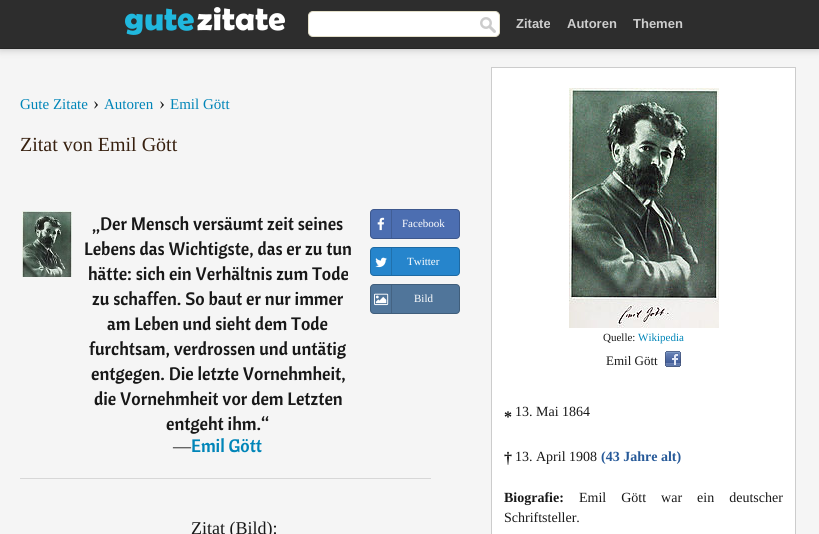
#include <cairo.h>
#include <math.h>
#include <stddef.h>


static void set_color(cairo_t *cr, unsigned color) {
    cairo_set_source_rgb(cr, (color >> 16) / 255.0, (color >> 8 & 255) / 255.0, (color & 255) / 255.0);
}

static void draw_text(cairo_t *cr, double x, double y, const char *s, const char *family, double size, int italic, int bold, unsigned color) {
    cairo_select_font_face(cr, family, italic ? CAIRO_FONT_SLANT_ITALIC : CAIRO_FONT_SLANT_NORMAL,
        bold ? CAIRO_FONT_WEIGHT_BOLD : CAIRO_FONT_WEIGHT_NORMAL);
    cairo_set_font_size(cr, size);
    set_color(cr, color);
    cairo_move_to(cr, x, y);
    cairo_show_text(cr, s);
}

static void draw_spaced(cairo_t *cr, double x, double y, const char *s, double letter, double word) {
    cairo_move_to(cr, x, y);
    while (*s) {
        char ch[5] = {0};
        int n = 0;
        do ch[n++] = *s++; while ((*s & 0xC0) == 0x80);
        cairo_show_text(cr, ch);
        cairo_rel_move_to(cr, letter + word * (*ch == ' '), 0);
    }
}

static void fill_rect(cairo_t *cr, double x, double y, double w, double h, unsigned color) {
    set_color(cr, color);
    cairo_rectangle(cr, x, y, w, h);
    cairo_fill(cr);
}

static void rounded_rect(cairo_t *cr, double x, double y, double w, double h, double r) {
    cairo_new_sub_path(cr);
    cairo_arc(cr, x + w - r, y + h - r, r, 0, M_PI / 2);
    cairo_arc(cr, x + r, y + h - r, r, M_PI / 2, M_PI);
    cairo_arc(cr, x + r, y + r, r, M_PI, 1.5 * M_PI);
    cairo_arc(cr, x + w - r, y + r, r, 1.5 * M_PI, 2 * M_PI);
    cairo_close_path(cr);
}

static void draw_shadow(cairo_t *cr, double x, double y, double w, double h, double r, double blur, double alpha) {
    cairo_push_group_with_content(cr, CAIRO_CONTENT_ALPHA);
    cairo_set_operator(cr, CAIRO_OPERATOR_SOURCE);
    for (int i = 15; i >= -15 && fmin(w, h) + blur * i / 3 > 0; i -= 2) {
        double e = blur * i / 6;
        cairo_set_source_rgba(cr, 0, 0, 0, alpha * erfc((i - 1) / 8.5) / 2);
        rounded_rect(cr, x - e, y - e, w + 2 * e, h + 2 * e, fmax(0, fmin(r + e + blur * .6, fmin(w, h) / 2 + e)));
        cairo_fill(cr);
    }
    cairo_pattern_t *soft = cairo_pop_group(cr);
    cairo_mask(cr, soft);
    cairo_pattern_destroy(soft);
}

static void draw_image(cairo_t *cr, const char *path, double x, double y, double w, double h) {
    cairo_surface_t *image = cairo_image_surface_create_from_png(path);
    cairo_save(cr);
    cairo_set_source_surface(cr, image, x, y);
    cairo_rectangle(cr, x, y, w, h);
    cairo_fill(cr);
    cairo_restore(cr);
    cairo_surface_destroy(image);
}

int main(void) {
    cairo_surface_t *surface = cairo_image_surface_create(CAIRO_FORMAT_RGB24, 819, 534);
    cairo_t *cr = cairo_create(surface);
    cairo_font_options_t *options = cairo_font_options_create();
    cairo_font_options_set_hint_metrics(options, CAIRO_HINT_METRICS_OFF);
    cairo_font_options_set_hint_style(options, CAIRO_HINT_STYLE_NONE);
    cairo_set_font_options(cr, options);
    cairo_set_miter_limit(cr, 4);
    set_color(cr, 0xF5F5F5);
    cairo_paint(cr);
    set_color(cr, 0x000000);
    draw_shadow(cr, 0, -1, 819, 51, 0, 4, 0.2);
    fill_rect(cr, 0, 0, 819, 48, 0x2D2D2D);
    fill_rect(cr, 0, 48, 819, 1, 0x252525);
    draw_image(cr, "assets/img1.png", 125, 7, 160, 28);
    set_color(cr, 0xFFFFFF);
    rounded_rect(cr, 308.5, 11.5, 191, 25, 4.5);
    cairo_fill_preserve(cr);
    set_color(cr, 0xE3DFC9);
    cairo_set_line_width(cr, 1);
    cairo_stroke(cr);
    draw_image(cr, "assets/img2.png", 480, 17, 16, 16);
    draw_text(cr, 516, 28, "Zitate", "Liberation Sans", 13, 0, 1, 0xCECECE);
    draw_text(cr, 567, 28, "Autoren", "Liberation Sans", 13, 0, 1, 0xCECECE);
    draw_text(cr, 633, 28, "Themen", "Liberation Sans", 13, 0, 1, 0xCECECE);
    draw_text(cr, 20, 109, "Gute Zitate", "Liberation Serif", 15, 0, 0, 0x0085B8);
    draw_text(cr, 93, 109, "›", "Liberation Serif", 18, 0, 0, 0x181818);
    draw_text(cr, 104, 109, "Autoren", "Liberation Serif", 15, 0, 0, 0x0085B8);
    draw_text(cr, 159, 109, "›", "Liberation Serif", 18, 0, 0, 0x181818);
    draw_text(cr, 170, 109, "Emil Gött", "Liberation Serif", 15, 0, 0, 0x0085B8);
    draw_text(cr, 20, 151, "Zitat von Emil Gött", "Liberation Serif", 20, 0, 0, 0x382110);
    fill_rect(cr, 20, 478, 411, 1, 0xD7D7D7);
    draw_image(cr, "assets/img3.png", 22, 211, 50, 66);
    draw_text(cr, 92, 230, "„Der Mensch versäumt zeit seines", "Cantora One", 18, 0, 0, 0x181818);
    draw_text(cr, 84, 255, "Lebens das Wichtigste, das er zu tun", "Cantora One", 18, 0, 0, 0x181818);
    draw_text(cr, 88, 280, "hätte: sich ein Verhältnis zum Tode", "Cantora One", 18, 0, 0, 0x181818);
    draw_text(cr, 92, 305, "zu schaffen. So baut er nur immer", "Cantora One", 18, 0, 0, 0x181818);
    draw_text(cr, 107, 330, "am Leben und sieht dem Tode", "Cantora One", 18, 0, 0, 0x181818);
    draw_text(cr, 89, 355, "furchtsam, verdrossen und untätig", "Cantora One", 18, 0, 0, 0x181818);
    draw_text(cr, 91, 380, "entgegen. Die letzte Vornehmheit,", "Cantora One", 18, 0, 0, 0x181818);
    draw_text(cr, 94, 405, "die Vornehmheit vor dem Letzten", "Cantora One", 18, 0, 0, 0x181818);
    draw_text(cr, 166, 430, "entgeht ihm.“", "Cantora One", 18, 0, 0, 0x181818);
    draw_text(cr, 173, 452, "―", "Liberation Serif", 18, 0, 0, 0x181818);
    draw_text(cr, 191, 452, "Emil Gött", "Cantora One", 18, 0, 0, 0x0085B8);
    set_color(cr, 0x4C6EB1);
    rounded_rect(cr, 370, 209, 90, 30, 4);
    cairo_fill(cr);
    rounded_rect(cr, 370.5, 209.5, 89, 29, 3.5);
    cairo_set_source_rgba(cr, 0, 0, 0, 0.2);
    cairo_stroke(cr);
    fill_rect(cr, 391, 210, 1, 28, 0x415E96);
    draw_image(cr, "assets/img4.png", 377, 217, 8, 14);
    draw_text(cr, 402, 227, "Facebook", "Liberation Serif", 11, 0, 0, 0xFFFFFF);
    set_color(cr, 0x2685CC);
    rounded_rect(cr, 370, 247, 90, 29, 4);
    cairo_fill(cr);
    rounded_rect(cr, 370.5, 247.5, 89, 28, 3.5);
    cairo_set_source_rgba(cr, 0, 0, 0, 0.2);
    cairo_stroke(cr);
    fill_rect(cr, 391, 248, 1, 27, 0x2071AD);
    draw_image(cr, "assets/img5.png", 375, 257, 12, 11);
    draw_text(cr, 407, 265, "Twitter", "Liberation Serif", 11, 0, 0, 0xFFFFFF);
    set_color(cr, 0x50759A);
    rounded_rect(cr, 370, 284, 90, 30, 4);
    cairo_fill(cr);
    rounded_rect(cr, 370.5, 284.5, 89, 29, 3.5);
    cairo_set_source_rgba(cr, 0, 0, 0, 0.2);
    cairo_stroke(cr);
    fill_rect(cr, 391, 285, 1, 28, 0x446383);
    draw_image(cr, "assets/img6.png", 374, 293, 15, 13);
    draw_text(cr, 414, 302, "Bild", "Liberation Serif", 11, 0, 0, 0xFFFFFF);
    draw_text(cr, 191, 534, "Zitat (Bild):", "Liberation Serif", 18, 0, 0, 0x181818);
    set_color(cr, 0xFFFFFF);
    cairo_rectangle(cr, 491.5, 67.5, 304, 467);
    cairo_fill_preserve(cr);
    set_color(cr, 0xCCCCCC);
    cairo_stroke(cr);
    draw_image(cr, "assets/img7.png", 569, 88, 150, 240);
    draw_text(cr, 603, 341, "Quelle:", "Liberation Serif", 11, 0, 0, 0x181818);
    draw_text(cr, 638, 341, "Wikipedia", "Liberation Serif", 11, 0, 0, 0x0085B8);
    draw_text(cr, 606, 365, "Emil Gött", "Liberation Serif", 13, 0, 0, 0x181818);
    draw_image(cr, "assets/img8.png", 665, 351, 16, 16);
    draw_text(cr, 504, 422, "*", "Liberation Serif", 16, 0, 1, 0x181818);
    draw_text(cr, 515, 416, "13. Mai 1864", "Liberation Serif", 14, 0, 0, 0x181818);
    draw_text(cr, 504, 463, "†", "Liberation Serif", 16, 0, 1, 0x181818);
    draw_text(cr, 515, 461, "13. April 1908", "Liberation Serif", 14, 0, 0, 0x181818);
    draw_text(cr, 601, 461, "(43 Jahre alt)", "Liberation Serif", 14, 0, 1, 0x275A99);
    draw_text(cr, 504, 502, "Biografie:", "Liberation Serif", 14, 0, 1, 0x181818);
    cairo_select_font_face(cr, "Liberation Serif", CAIRO_FONT_SLANT_NORMAL, CAIRO_FONT_WEIGHT_NORMAL);
    draw_spaced(cr, 579, 502, "Emil Gött war ein deutscher", 0, 11.5);
    draw_text(cr, 504, 522, "Schriftsteller.", "Liberation Serif", 14, 0, 0, 0x181818);
    cairo_surface_write_to_png(surface, "output.png");
    cairo_font_options_destroy(options);
    cairo_destroy(cr);
    cairo_surface_destroy(surface);
    return 0;
}
